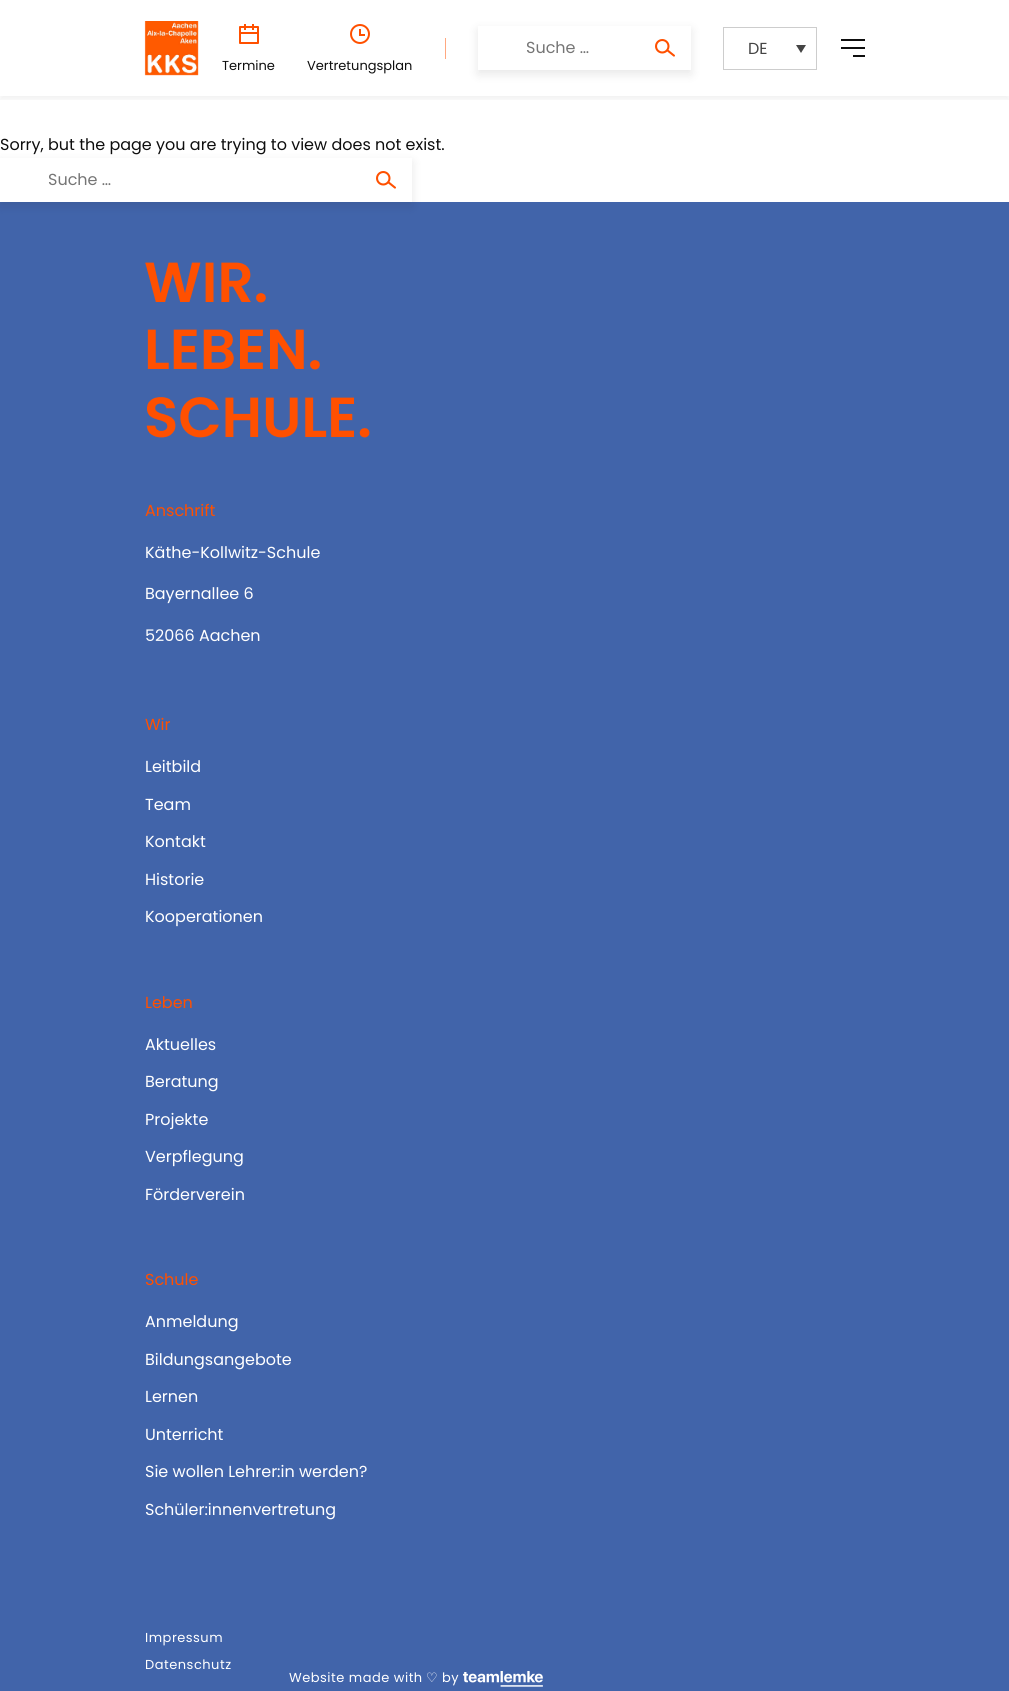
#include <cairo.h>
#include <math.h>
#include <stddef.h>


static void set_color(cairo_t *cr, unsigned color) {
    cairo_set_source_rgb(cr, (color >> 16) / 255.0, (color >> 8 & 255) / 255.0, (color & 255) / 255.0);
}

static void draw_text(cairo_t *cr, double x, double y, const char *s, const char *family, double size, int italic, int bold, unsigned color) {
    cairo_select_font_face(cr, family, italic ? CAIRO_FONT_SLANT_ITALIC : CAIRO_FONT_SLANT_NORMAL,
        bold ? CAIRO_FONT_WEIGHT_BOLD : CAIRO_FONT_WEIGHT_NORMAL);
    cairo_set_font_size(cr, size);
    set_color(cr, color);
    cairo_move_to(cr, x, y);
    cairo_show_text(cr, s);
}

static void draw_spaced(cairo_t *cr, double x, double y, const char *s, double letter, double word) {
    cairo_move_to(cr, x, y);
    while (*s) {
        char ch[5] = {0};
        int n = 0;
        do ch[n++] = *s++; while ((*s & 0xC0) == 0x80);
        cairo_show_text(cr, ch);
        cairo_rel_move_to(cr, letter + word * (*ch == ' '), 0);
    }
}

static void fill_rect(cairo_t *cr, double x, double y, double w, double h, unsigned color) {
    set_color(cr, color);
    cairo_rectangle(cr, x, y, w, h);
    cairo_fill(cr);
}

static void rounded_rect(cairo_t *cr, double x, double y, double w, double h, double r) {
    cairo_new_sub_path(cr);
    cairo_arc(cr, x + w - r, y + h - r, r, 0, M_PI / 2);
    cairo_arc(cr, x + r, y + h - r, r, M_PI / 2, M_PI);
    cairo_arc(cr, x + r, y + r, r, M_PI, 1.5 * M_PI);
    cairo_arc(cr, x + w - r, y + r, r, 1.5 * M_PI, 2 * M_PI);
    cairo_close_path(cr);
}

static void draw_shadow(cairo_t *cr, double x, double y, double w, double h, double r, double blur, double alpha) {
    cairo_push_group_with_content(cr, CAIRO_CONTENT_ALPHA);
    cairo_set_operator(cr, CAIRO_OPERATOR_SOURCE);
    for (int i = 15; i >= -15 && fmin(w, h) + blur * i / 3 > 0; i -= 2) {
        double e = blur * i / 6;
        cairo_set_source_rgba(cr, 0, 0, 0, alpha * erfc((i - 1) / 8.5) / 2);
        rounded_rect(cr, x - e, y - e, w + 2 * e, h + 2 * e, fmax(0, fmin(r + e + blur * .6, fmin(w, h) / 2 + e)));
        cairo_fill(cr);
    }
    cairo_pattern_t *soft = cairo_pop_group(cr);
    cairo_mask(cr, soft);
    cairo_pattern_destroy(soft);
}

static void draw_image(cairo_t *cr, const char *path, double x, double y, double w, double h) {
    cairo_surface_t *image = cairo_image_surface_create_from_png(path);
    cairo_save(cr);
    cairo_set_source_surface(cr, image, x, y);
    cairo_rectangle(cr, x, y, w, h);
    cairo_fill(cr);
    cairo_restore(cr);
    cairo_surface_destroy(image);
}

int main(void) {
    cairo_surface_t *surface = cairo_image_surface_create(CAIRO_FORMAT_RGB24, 1009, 1691);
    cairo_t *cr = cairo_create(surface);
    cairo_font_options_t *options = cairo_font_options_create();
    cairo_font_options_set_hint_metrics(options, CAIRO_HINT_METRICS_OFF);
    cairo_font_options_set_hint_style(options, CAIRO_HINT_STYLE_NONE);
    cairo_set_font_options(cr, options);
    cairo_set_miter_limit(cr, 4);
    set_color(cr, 0xFFFFFF);
    cairo_paint(cr);
    cairo_save(cr);
    cairo_rectangle(cr, 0, 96, 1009, 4);
    cairo_clip(cr);
    set_color(cr, 0x000000);
    draw_shadow(cr, 0, 4, 1009, 96, 0, 2, 0.05);
    cairo_restore(cr);
    draw_image(cr, "assets/img1.png", 144, 21, 55, 55);
    fill_rect(cr, 445, 38, 1, 21, 0xFFA880);
    cairo_save(cr);
    cairo_set_fill_rule(cr, CAIRO_FILL_RULE_EVEN_ODD);
    cairo_new_path(cr);
    cairo_move_to(cr, 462, 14);
    cairo_line_to(cr, 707, 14);
    cairo_line_to(cr, 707, 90);
    cairo_line_to(cr, 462, 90);
    cairo_close_path(cr);
    cairo_move_to(cr, 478, 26);
    cairo_line_to(cr, 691, 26);
    cairo_line_to(cr, 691, 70);
    cairo_line_to(cr, 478, 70);
    cairo_close_path(cr);
    cairo_clip(cr);
    set_color(cr, 0x0D0D0D);
    draw_shadow(cr, 478, 30, 213, 44, 0, 5, 0.1);
    cairo_restore(cr);
    draw_text(cr, 526, 53, "Suche …", "Poppins", 16, 0, 0, 0x757575);
    draw_image(cr, "assets/img2.png", 655, 39, 20, 18);
    cairo_rectangle(cr, 723.5, 27.5, 93, 42);
    set_color(cr, 0xCDCDCD);
    cairo_set_line_width(cr, 1);
    cairo_stroke(cr);
    draw_text(cr, 748, 54, "DE", "Poppins", 16, 0, 0, 0x444444);
    cairo_new_path(cr);
    cairo_move_to(cr, 796, 45);
    cairo_line_to(cr, 806, 45);
    cairo_line_to(cr, 801, 53);
    cairo_close_path(cr);
    cairo_fill(cr);
    draw_image(cr, "assets/img3.png", 239, 24, 20, 20);
    draw_text(cr, 222, 70, "Termine", "Poppins", 13, 0, 0, 0x0E0E0E);
    draw_image(cr, "assets/img4.png", 350, 24, 20, 20);
    draw_text(cr, 307, 70, "Vertretungsplan", "Poppins", 13, 0, 0, 0x0E0E0E);
    fill_rect(cr, 841, 39, 24, 2, 0x0E0E0E);
    fill_rect(cr, 841, 47, 24, 2, 0x0E0E0E);
    fill_rect(cr, 853, 55, 12, 2, 0x0E0E0E);
    draw_text(cr, 0, 150, "Sorry, but the page you are trying to view does not exist.", "Poppins", 16, 0, 0, 0x0E0E0E);
    fill_rect(cr, 0, 202, 1009, 1489, 0x4164AA);
    cairo_save(cr);
    cairo_set_fill_rule(cr, CAIRO_FILL_RULE_EVEN_ODD);
    cairo_new_path(cr);
    cairo_move_to(cr, 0, 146);
    cairo_line_to(cr, 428, 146);
    cairo_line_to(cr, 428, 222);
    cairo_line_to(cr, 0, 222);
    cairo_close_path(cr);
    cairo_move_to(cr, 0, 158);
    cairo_line_to(cr, 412, 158);
    cairo_line_to(cr, 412, 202);
    cairo_line_to(cr, 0, 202);
    cairo_close_path(cr);
    cairo_clip(cr);
    set_color(cr, 0x0D0D0D);
    draw_shadow(cr, 0, 162, 412, 44, 0, 5, 0.1);
    cairo_restore(cr);
    draw_text(cr, 48, 185, "Suche …", "Poppins", 16, 0, 0, 0x757575);
    draw_image(cr, "assets/img2.png", 376, 171, 20, 18);
    draw_image(cr, "assets/img5.png", 145, 262, 225, 176);
    draw_text(cr, 145, 516, "Anschrift", "Poppins", 16, 0, 0, 0xFF5000);
    draw_text(cr, 145, 558, "Käthe-Kollwitz-Schule", "Poppins", 16, 0, 0, 0xFFFFFF);
    draw_text(cr, 145, 599, "Bayernallee 6", "Poppins", 16, 0, 0, 0xFFFFFF);
    draw_text(cr, 145, 641, "52066 Aachen", "Poppins", 16, 0, 0, 0xFFFFFF);
    draw_text(cr, 145, 730, "Wir", "Poppins", 16, 0, 0, 0xFF5000);
    draw_text(cr, 145, 772, "Leitbild", "Poppins", 16, 0, 0, 0xFFFFFF);
    draw_text(cr, 145, 810, "Team", "Poppins", 16, 0, 0, 0xFFFFFF);
    draw_text(cr, 145, 847, "Kontakt", "Poppins", 16, 0, 0, 0xFFFFFF);
    draw_text(cr, 145, 885, "Historie", "Poppins", 16, 0, 0, 0xFFFFFF);
    draw_text(cr, 145, 922, "Kooperationen", "Poppins", 16, 0, 0, 0xFFFFFF);
    draw_text(cr, 145, 1008, "Leben", "Poppins", 16, 0, 0, 0xFF5000);
    draw_text(cr, 145, 1050, "Aktuelles", "Poppins", 16, 0, 0, 0xFFFFFF);
    draw_text(cr, 145, 1087, "Beratung", "Poppins", 16, 0, 0, 0xFFFFFF);
    draw_text(cr, 145, 1125, "Projekte", "Poppins", 16, 0, 0, 0xFFFFFF);
    draw_text(cr, 145, 1162, "Verpflegung", "Poppins", 16, 0, 0, 0xFFFFFF);
    draw_text(cr, 145, 1200, "Förderverein", "Poppins", 16, 0, 0, 0xFFFFFF);
    draw_text(cr, 145, 1285, "Schule", "Poppins", 16, 0, 0, 0xFF5000);
    draw_text(cr, 145, 1327, "Anmeldung", "Poppins", 16, 0, 0, 0xFFFFFF);
    draw_text(cr, 145, 1365, "Bildungsangebote", "Poppins", 16, 0, 0, 0xFFFFFF);
    draw_text(cr, 145, 1402, "Lernen", "Poppins", 16, 0, 0, 0xFFFFFF);
    draw_text(cr, 145, 1440, "Unterricht", "Poppins", 16, 0, 0, 0xFFFFFF);
    draw_text(cr, 145, 1477, "Sie wollen Lehrer:in werden?", "Poppins", 16, 0, 0, 0xFFFFFF);
    draw_text(cr, 145, 1515, "Schüler:innenvertretung", "Poppins", 16, 0, 0, 0xFFFFFF);
    cairo_set_font_size(cr, 13);
    draw_spaced(cr, 145, 1642, "Impressum", 0.5, 0);
    draw_spaced(cr, 145, 1669, "Datenschutz", 0.5, 0);
    draw_spaced(cr, 289, 1682, "Website made with", 0.5, 0);
    cairo_select_font_face(cr, "DejaVu Sans", CAIRO_FONT_SLANT_NORMAL, CAIRO_FONT_WEIGHT_NORMAL);
    draw_spaced(cr, 426, 1682, "♡", 0.5, 0);
    cairo_select_font_face(cr, "Poppins", CAIRO_FONT_SLANT_NORMAL, CAIRO_FONT_WEIGHT_NORMAL);
    draw_spaced(cr, 442, 1682, "by", 0.5, 0);
    draw_image(cr, "assets/img6.png", 463, 1671, 80, 16);
    cairo_surface_write_to_png(surface, "output.png");
    cairo_font_options_destroy(options);
    cairo_destroy(cr);
    cairo_surface_destroy(surface);
    return 0;
}
